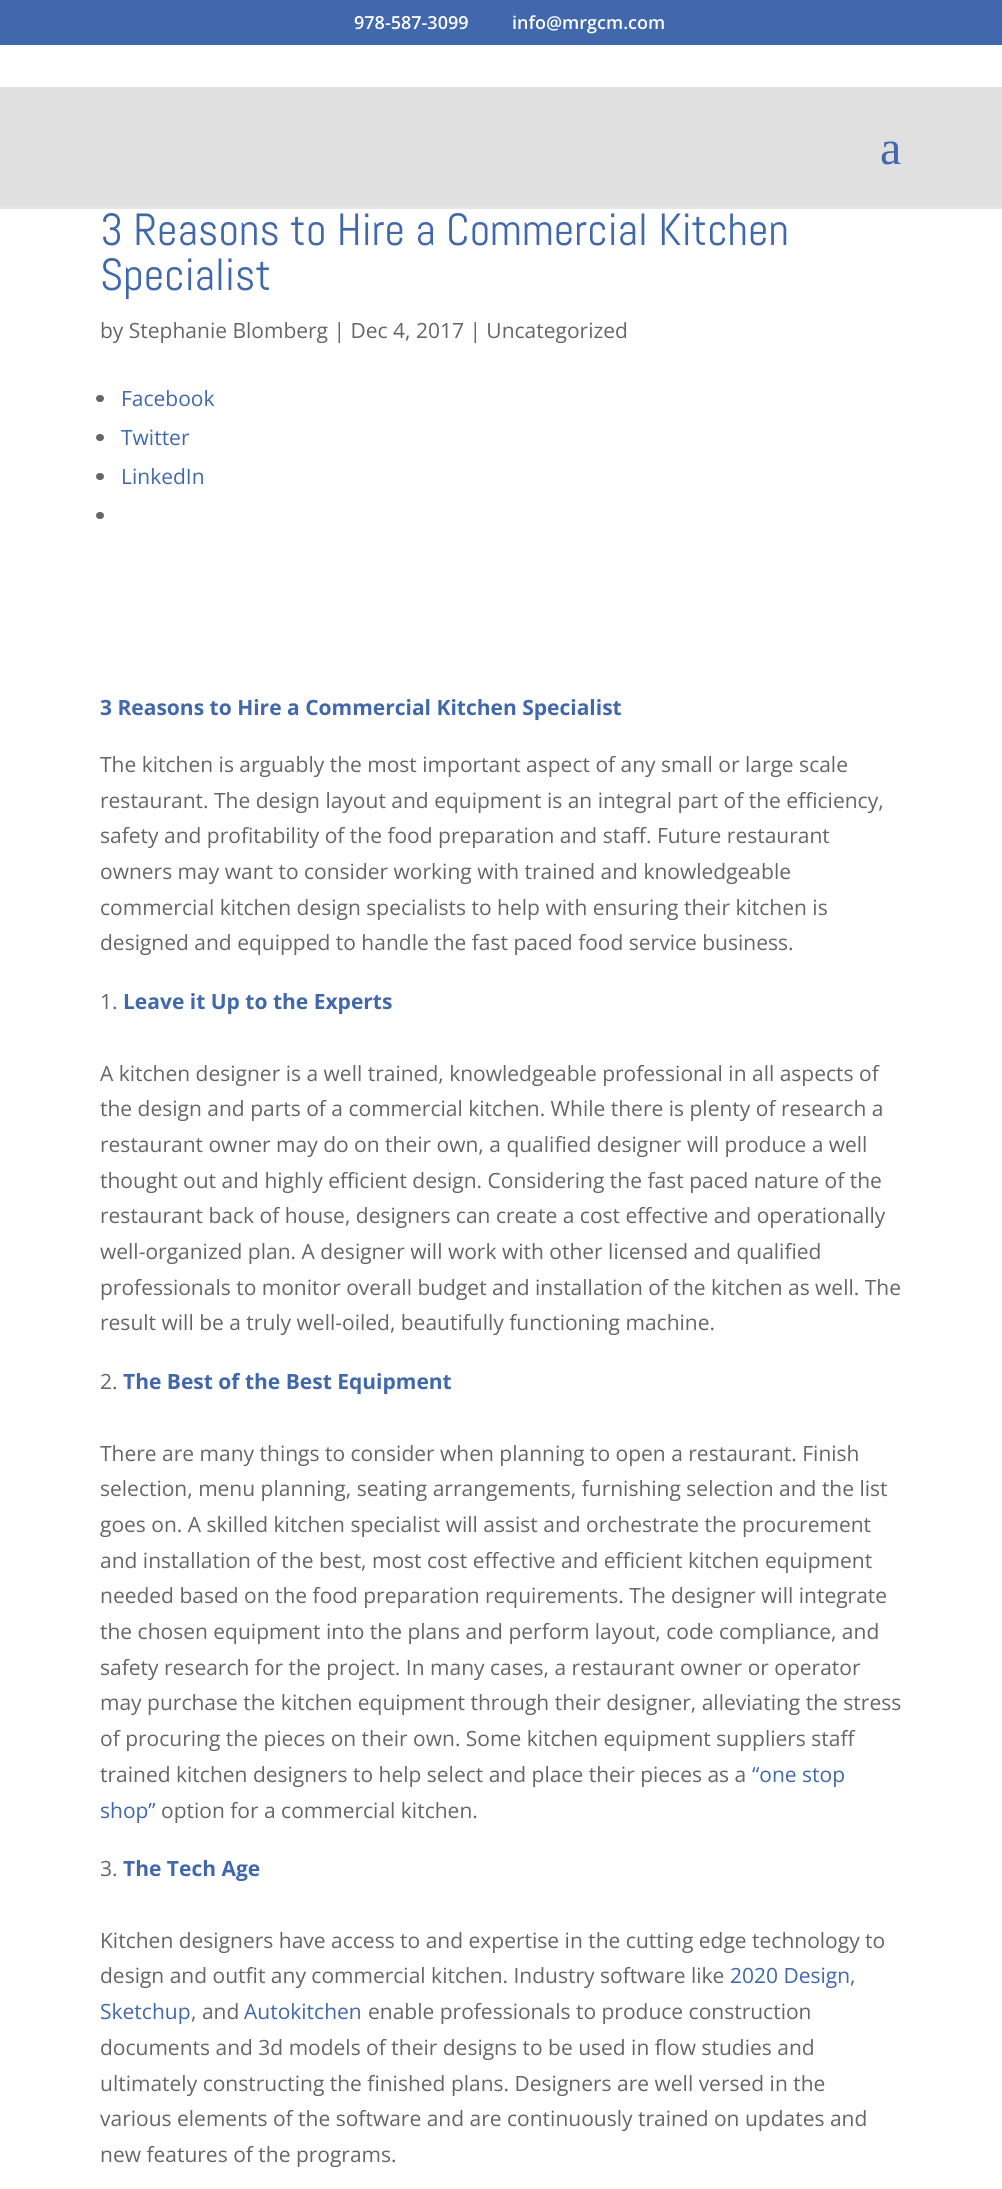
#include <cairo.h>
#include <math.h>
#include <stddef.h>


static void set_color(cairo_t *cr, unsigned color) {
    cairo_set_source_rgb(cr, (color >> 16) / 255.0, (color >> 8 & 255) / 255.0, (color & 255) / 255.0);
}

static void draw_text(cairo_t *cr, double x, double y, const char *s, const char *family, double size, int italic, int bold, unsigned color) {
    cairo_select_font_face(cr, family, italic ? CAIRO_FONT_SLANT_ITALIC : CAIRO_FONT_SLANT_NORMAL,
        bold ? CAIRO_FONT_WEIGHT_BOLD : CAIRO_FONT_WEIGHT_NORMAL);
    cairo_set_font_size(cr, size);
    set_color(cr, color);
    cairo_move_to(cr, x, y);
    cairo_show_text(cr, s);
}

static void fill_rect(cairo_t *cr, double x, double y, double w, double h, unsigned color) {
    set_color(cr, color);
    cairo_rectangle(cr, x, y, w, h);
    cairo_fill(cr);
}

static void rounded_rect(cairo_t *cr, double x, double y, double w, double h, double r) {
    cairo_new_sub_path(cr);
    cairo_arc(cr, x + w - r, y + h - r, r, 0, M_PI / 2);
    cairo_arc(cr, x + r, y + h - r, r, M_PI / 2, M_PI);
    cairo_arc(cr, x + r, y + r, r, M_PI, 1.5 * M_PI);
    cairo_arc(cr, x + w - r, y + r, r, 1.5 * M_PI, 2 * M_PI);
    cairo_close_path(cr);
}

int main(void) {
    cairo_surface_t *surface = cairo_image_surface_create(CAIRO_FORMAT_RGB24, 1002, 2189);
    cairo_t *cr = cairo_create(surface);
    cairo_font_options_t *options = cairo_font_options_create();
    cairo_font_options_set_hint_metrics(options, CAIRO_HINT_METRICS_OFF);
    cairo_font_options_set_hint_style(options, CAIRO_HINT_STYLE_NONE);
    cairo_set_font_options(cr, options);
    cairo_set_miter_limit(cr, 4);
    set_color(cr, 0xFFFFFF);
    cairo_paint(cr);
    fill_rect(cr, 0, 0, 1002, 45, 0x4168AD);
    draw_text(cr, 354, 29, "978-587-3099", "Open Sans SemiBold", 18, 0, 0, 0xFFFFFF);
    draw_text(cr, 512, 29, "info@mrgcm.com", "Open Sans SemiBold", 18, 0, 0, 0xFFFFFF);
    fill_rect(cr, 0, 207, 1002, 2, 0xE6E6E6);
    fill_rect(cr, 0, 87, 1002, 120, 0xE0E0E0);
    draw_text(cr, 880, 164, "a", "Liberation Serif", 48, 0, 0, 0x4168AD);
    draw_text(cr, 100, 245, "3 Reasons to Hire a Commercial Kitchen", "Abel", 45, 0, 0, 0x4168AD);
    draw_text(cr, 100, 290, "Specialist", "Abel", 45, 0, 0, 0x4168AD);
    draw_text(cr, 100, 338, "by Stephanie Blomberg | Dec 4, 2017 | Uncategorized", "Open Sans", 21, 0, 0, 0x666666);
    rounded_rect(cr, 96, 395, 8, 7, 3.5);
    cairo_fill(cr);
    draw_text(cr, 121, 406, "Facebook", "Open Sans", 21, 0, 0, 0x4168AD);
    set_color(cr, 0x666666);
    rounded_rect(cr, 96, 434, 8, 7, 3.5);
    cairo_fill(cr);
    draw_text(cr, 121, 445, "Twitter", "Open Sans", 21, 0, 0, 0x4168AD);
    set_color(cr, 0x666666);
    rounded_rect(cr, 96, 473, 8, 7, 3.5);
    cairo_fill(cr);
    draw_text(cr, 121, 484, "LinkedIn", "Open Sans", 21, 0, 0, 0x4168AD);
    set_color(cr, 0x666666);
    rounded_rect(cr, 96, 512, 8, 7, 3.5);
    cairo_fill(cr);
    draw_text(cr, 100, 715, "3 Reasons to Hire a Commercial Kitchen Specialist", "Open Sans", 21, 0, 1, 0x4168AD);
    draw_text(cr, 100, 772, "The kitchen is arguably the most important aspect of any small or large scale", "Open Sans", 21, 0, 0, 0x666666);
    draw_text(cr, 100, 808, "restaurant. The design layout and equipment is an integral part of the efficiency,", "Open Sans", 21, 0, 0, 0x666666);
    draw_text(cr, 100, 843, "safety and profitability of the food preparation and staff. Future restaurant", "Open Sans", 21, 0, 0, 0x666666);
    draw_text(cr, 100, 879, "owners may want to consider working with trained and knowledgeable", "Open Sans", 21, 0, 0, 0x666666);
    draw_text(cr, 100, 915, "commercial kitchen design specialists to help with ensuring their kitchen is", "Open Sans", 21, 0, 0, 0x666666);
    draw_text(cr, 100, 950, "designed and equipped to handle the fast paced food service business.", "Open Sans", 21, 0, 0, 0x666666);
    draw_text(cr, 100, 1009, "1.", "Open Sans", 21, 0, 0, 0x666666);
    draw_text(cr, 123, 1009, "Leave it Up to the Experts", "Open Sans", 21, 0, 1, 0x4168AD);
    draw_text(cr, 100, 1081, "A kitchen designer is a well trained, knowledgeable professional in all aspects of", "Open Sans", 21, 0, 0, 0x666666);
    draw_text(cr, 100, 1116, "the design and parts of a commercial kitchen. While there is plenty of research a", "Open Sans", 21, 0, 0, 0x666666);
    draw_text(cr, 100, 1152, "restaurant owner may do on their own, a qualified designer will produce a well", "Open Sans", 21, 0, 0, 0x666666);
    draw_text(cr, 100, 1188, "thought out and highly efficient design. Considering the fast paced nature of the", "Open Sans", 21, 0, 0, 0x666666);
    draw_text(cr, 100, 1223, "restaurant back of house, designers can create a cost effective and operationally", "Open Sans", 21, 0, 0, 0x666666);
    draw_text(cr, 100, 1259, "well-organized plan. A designer will work with other licensed and qualified", "Open Sans", 21, 0, 0, 0x666666);
    draw_text(cr, 100, 1295, "professionals to monitor overall budget and installation of the kitchen as well. The", "Open Sans", 21, 0, 0, 0x666666);
    draw_text(cr, 100, 1330, "result will be a truly well-oiled, beautifully functioning machine.", "Open Sans", 21, 0, 0, 0x666666);
    draw_text(cr, 100, 1389, "2.", "Open Sans", 21, 0, 0, 0x666666);
    draw_text(cr, 123, 1389, "The Best of the Best Equipment", "Open Sans", 21, 0, 1, 0x4168AD);
    draw_text(cr, 100, 1461, "There are many things to consider when planning to open a restaurant. Finish", "Open Sans", 21, 0, 0, 0x666666);
    draw_text(cr, 100, 1496, "selection, menu planning, seating arrangements, furnishing selection and the list", "Open Sans", 21, 0, 0, 0x666666);
    draw_text(cr, 100, 1532, "goes on. A skilled kitchen specialist will assist and orchestrate the procurement", "Open Sans", 21, 0, 0, 0x666666);
    draw_text(cr, 100, 1568, "and installation of the best, most cost effective and efficient kitchen equipment", "Open Sans", 21, 0, 0, 0x666666);
    draw_text(cr, 100, 1603, "needed based on the food preparation requirements. The designer will integrate", "Open Sans", 21, 0, 0, 0x666666);
    draw_text(cr, 100, 1639, "the chosen equipment into the plans and perform layout, code compliance, and", "Open Sans", 21, 0, 0, 0x666666);
    draw_text(cr, 100, 1675, "safety research for the project. In many cases, a restaurant owner or operator", "Open Sans", 21, 0, 0, 0x666666);
    draw_text(cr, 100, 1710, "may purchase the kitchen equipment through their designer, alleviating the stress", "Open Sans", 21, 0, 0, 0x666666);
    draw_text(cr, 100, 1746, "of procuring the pieces on their own. Some kitchen equipment suppliers staff", "Open Sans", 21, 0, 0, 0x666666);
    draw_text(cr, 100, 1782, "trained kitchen designers to help select and place their pieces as a", "Open Sans", 21, 0, 0, 0x666666);
    draw_text(cr, 752, 1782, "“one stop", "Open Sans", 21, 0, 0, 0x4168AD);
    draw_text(cr, 100, 1818, "shop”", "Open Sans", 21, 0, 0, 0x4168AD);
    draw_text(cr, 161, 1818, "option for a commercial kitchen.", "Open Sans", 21, 0, 0, 0x666666);
    draw_text(cr, 100, 1876, "3.", "Open Sans", 21, 0, 0, 0x666666);
    draw_text(cr, 123, 1876, "The Tech Age", "Open Sans", 21, 0, 1, 0x4168AD);
    draw_text(cr, 100, 1948, "Kitchen designers have access to and expertise in the cutting edge technology to", "Open Sans", 21, 0, 0, 0x666666);
    draw_text(cr, 100, 1983, "design and outfit any commercial kitchen. Industry software like", "Open Sans", 21, 0, 0, 0x666666);
    draw_text(cr, 730, 1983, "2020 Design", "Open Sans", 21, 0, 0, 0x4168AD);
    draw_text(cr, 850, 1983, ",", "Open Sans", 21, 0, 0, 0x666666);
    draw_text(cr, 100, 2019, "Sketchup", "Open Sans", 21, 0, 0, 0x4168AD);
    draw_text(cr, 191, 2019, ", and", "Open Sans", 21, 0, 0, 0x666666);
    draw_text(cr, 244, 2019, "Autokitchen", "Open Sans", 21, 0, 0, 0x4168AD);
    draw_text(cr, 368, 2019, "enable professionals to produce construction", "Open Sans", 21, 0, 0, 0x666666);
    draw_text(cr, 100, 2055, "documents and 3d models of their designs to be used in flow studies and", "Open Sans", 21, 0, 0, 0x666666);
    draw_text(cr, 100, 2091, "ultimately constructing the finished plans. Designers are well versed in the", "Open Sans", 21, 0, 0, 0x666666);
    draw_text(cr, 100, 2126, "various elements of the software and are continuously trained on updates and", "Open Sans", 21, 0, 0, 0x666666);
    draw_text(cr, 100, 2162, "new features of the programs.", "Open Sans", 21, 0, 0, 0x666666);
    cairo_surface_write_to_png(surface, "output.png");
    cairo_font_options_destroy(options);
    cairo_destroy(cr);
    cairo_surface_destroy(surface);
    return 0;
}
